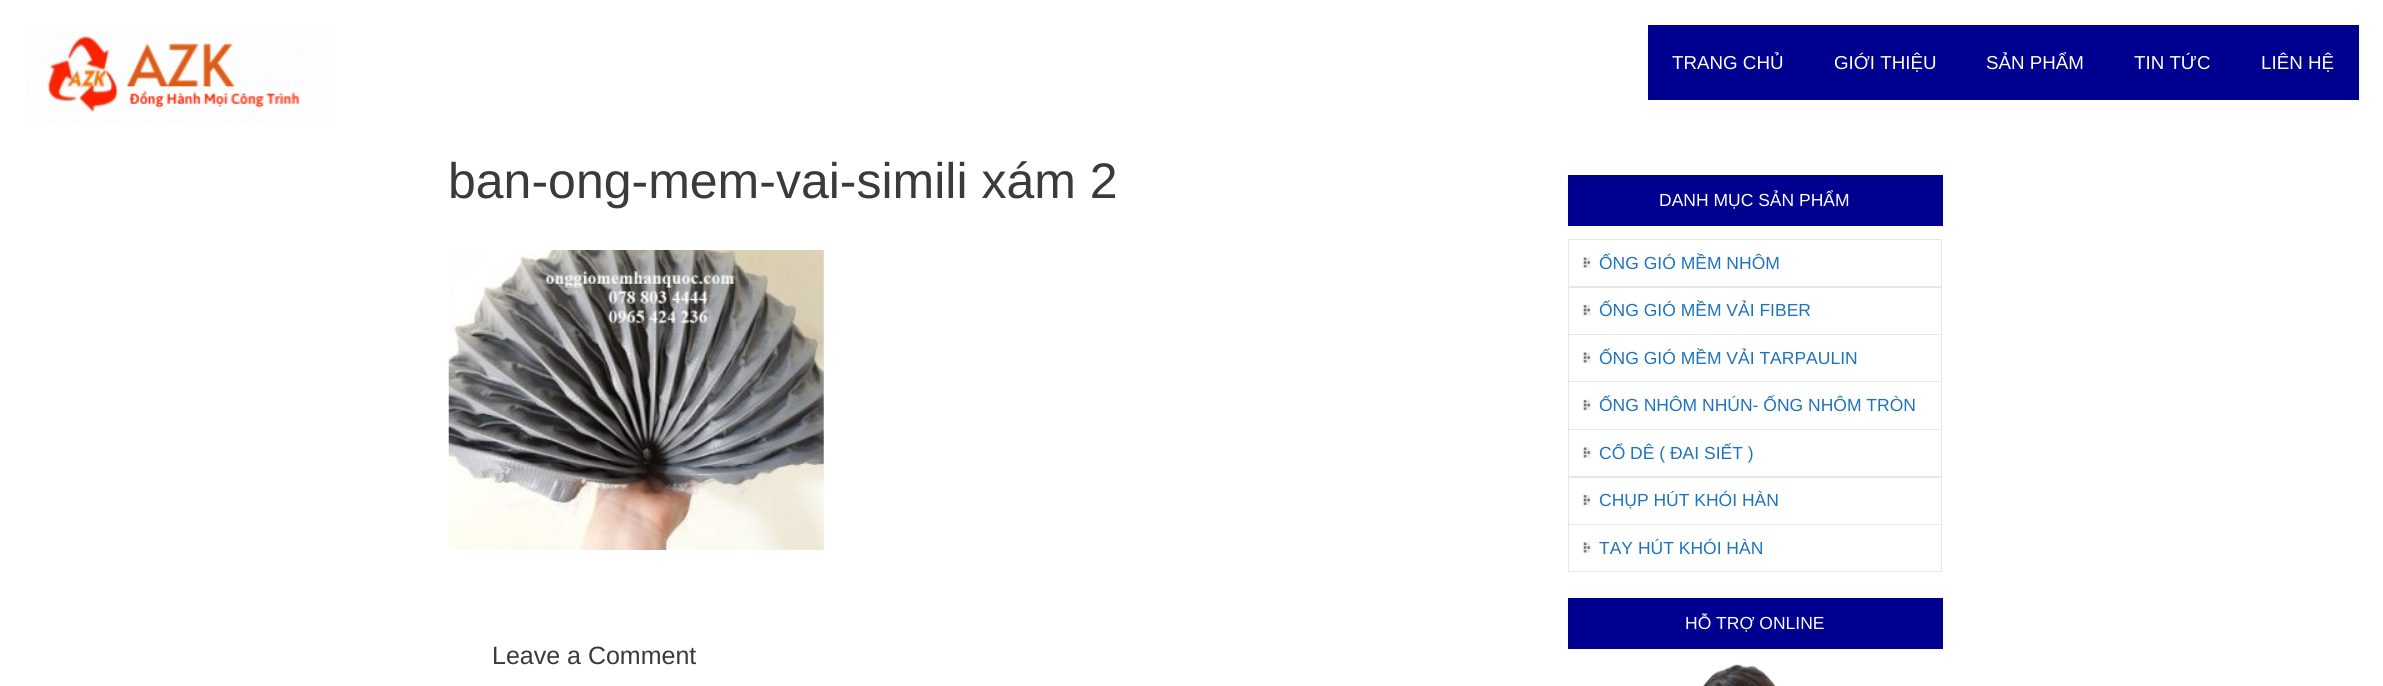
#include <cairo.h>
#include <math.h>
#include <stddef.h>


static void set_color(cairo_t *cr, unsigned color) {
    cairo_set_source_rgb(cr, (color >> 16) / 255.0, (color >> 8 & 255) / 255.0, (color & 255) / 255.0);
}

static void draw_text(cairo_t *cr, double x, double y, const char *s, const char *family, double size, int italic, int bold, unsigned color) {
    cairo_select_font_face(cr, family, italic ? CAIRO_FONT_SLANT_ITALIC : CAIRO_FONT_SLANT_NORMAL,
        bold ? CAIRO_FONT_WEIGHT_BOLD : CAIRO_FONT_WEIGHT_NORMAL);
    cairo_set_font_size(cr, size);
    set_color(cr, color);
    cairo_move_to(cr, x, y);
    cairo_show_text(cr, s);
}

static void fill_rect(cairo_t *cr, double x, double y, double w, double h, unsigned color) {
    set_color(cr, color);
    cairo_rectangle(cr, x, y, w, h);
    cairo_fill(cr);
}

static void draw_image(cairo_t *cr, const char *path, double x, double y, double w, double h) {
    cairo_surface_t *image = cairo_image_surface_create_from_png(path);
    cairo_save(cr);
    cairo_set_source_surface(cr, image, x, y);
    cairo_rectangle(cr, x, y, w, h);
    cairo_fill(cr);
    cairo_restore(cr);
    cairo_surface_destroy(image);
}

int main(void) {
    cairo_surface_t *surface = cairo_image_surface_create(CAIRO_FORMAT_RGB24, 2383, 686);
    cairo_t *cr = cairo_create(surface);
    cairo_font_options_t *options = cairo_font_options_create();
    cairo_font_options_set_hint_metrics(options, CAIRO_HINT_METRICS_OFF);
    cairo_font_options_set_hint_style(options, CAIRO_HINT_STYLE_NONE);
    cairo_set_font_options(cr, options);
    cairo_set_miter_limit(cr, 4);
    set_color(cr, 0xFFFFFF);
    cairo_paint(cr);
    draw_image(cr, "assets/img1.png", 25, 25, 311, 100);
    fill_rect(cr, 1648, 25, 711, 75, 0x000090);
    draw_text(cr, 1672, 69, "TRANG CHỦ", "Liberation Sans", 18.75, 0, 0, 0xFFFFFF);
    draw_text(cr, 1834, 69, "GIỚI THIỆU", "Liberation Sans", 18.75, 0, 0, 0xFFFFFF);
    draw_text(cr, 1986, 69, "SẢN PHẨM", "Liberation Sans", 18.75, 0, 0, 0xFFFFFF);
    draw_text(cr, 2134, 69, "TIN TỨC", "Liberation Sans", 18.75, 0, 0, 0xFFFFFF);
    draw_text(cr, 2261, 69, "LIÊN HỆ", "Liberation Sans", 18.75, 0, 0, 0xFFFFFF);
    draw_text(cr, 448, 198, "ban-ong-mem-vai-simili xám 2", "Liberation Sans", 50, 0, 0, 0x3A3A3A);
    draw_image(cr, "assets/img2.png", 448, 250, 376, 300);
    draw_text(cr, 492, 664, "Leave a Comment", "Liberation Sans", 25, 0, 0, 0x3A3A3A);
    fill_rect(cr, 1568, 175, 375, 51, 0x000090);
    draw_text(cr, 1659, 206, "DANH MỤC SẢN PHẨM", "Liberation Sans", 17.5, 0, 0, 0xFFFFFF);
    set_color(cr, 0xE6E6E6);
    cairo_new_path(cr);
    cairo_move_to(cr, 1568, 239);
    cairo_line_to(cr, 1942, 239);
    cairo_line_to(cr, 1942, 240);
    cairo_line_to(cr, 1569, 240);
    cairo_close_path(cr);
    cairo_fill(cr);
    cairo_set_source_rgba(cr, 0, 0, 0, 0.1);
    cairo_new_path(cr);
    cairo_move_to(cr, 1568, 572);
    cairo_line_to(cr, 1568, 239);
    cairo_line_to(cr, 1569, 240);
    cairo_line_to(cr, 1569, 572);
    cairo_close_path(cr);
    cairo_fill(cr);
    set_color(cr, 0xE6E6E6);
    cairo_new_path(cr);
    cairo_move_to(cr, 1942, 240);
    cairo_line_to(cr, 1942, 288);
    cairo_line_to(cr, 1941, 286);
    cairo_line_to(cr, 1941, 240);
    cairo_close_path(cr);
    cairo_fill(cr);
    cairo_set_source_rgba(cr, 0, 0, 0, 0.1);
    cairo_new_path(cr);
    cairo_move_to(cr, 1942, 288);
    cairo_line_to(cr, 1569, 288);
    cairo_line_to(cr, 1569, 286);
    cairo_line_to(cr, 1941, 286);
    cairo_close_path(cr);
    cairo_fill(cr);
    draw_image(cr, "assets/img3.png", 1582, 257, 9, 12);
    draw_text(cr, 1599, 269, "ỐNG GIÓ MỀM NHÔM", "Liberation Sans", 17.5, 0, 0, 0x1E73BE);
    set_color(cr, 0xE6E6E6);
    cairo_new_path(cr);
    cairo_move_to(cr, 1942, 288);
    cairo_line_to(cr, 1942, 335);
    cairo_line_to(cr, 1941, 334);
    cairo_line_to(cr, 1941, 288);
    cairo_close_path(cr);
    cairo_fill(cr);
    cairo_set_source_rgba(cr, 0, 0, 0, 0.1);
    cairo_new_path(cr);
    cairo_move_to(cr, 1942, 335);
    cairo_line_to(cr, 1569, 335);
    cairo_line_to(cr, 1569, 334);
    cairo_line_to(cr, 1941, 334);
    cairo_close_path(cr);
    cairo_fill(cr);
    draw_image(cr, "assets/img4.png", 1582, 304, 9, 12);
    draw_text(cr, 1599, 316, "ỐNG GIÓ MỀM VẢI FIBER", "Liberation Sans", 17.5, 0, 0, 0x1E73BE);
    set_color(cr, 0xE6E6E6);
    cairo_new_path(cr);
    cairo_move_to(cr, 1942, 335);
    cairo_line_to(cr, 1942, 382);
    cairo_line_to(cr, 1941, 381);
    cairo_line_to(cr, 1941, 335);
    cairo_close_path(cr);
    cairo_fill(cr);
    cairo_set_source_rgba(cr, 0, 0, 0, 0.1);
    cairo_new_path(cr);
    cairo_move_to(cr, 1942, 382);
    cairo_line_to(cr, 1569, 382);
    cairo_line_to(cr, 1569, 381);
    cairo_line_to(cr, 1941, 381);
    cairo_close_path(cr);
    cairo_fill(cr);
    draw_image(cr, "assets/img5.png", 1582, 352, 9, 12);
    draw_text(cr, 1599, 364, "ỐNG GIÓ MỀM VẢI TARPAULIN", "Liberation Sans", 17.5, 0, 0, 0x1E73BE);
    set_color(cr, 0xE6E6E6);
    cairo_new_path(cr);
    cairo_move_to(cr, 1942, 382);
    cairo_line_to(cr, 1942, 430);
    cairo_line_to(cr, 1941, 429);
    cairo_line_to(cr, 1941, 382);
    cairo_close_path(cr);
    cairo_fill(cr);
    cairo_set_source_rgba(cr, 0, 0, 0, 0.1);
    cairo_new_path(cr);
    cairo_move_to(cr, 1942, 430);
    cairo_line_to(cr, 1569, 430);
    cairo_line_to(cr, 1569, 429);
    cairo_line_to(cr, 1941, 429);
    cairo_close_path(cr);
    cairo_fill(cr);
    draw_image(cr, "assets/img4.png", 1582, 399, 9, 12);
    draw_text(cr, 1599, 411, "ỐNG NHÔM NHÚN- ỐNG NHÔM TRÒN", "Liberation Sans", 17.5, 0, 0, 0x1E73BE);
    set_color(cr, 0xE6E6E6);
    cairo_new_path(cr);
    cairo_move_to(cr, 1942, 430);
    cairo_line_to(cr, 1942, 478);
    cairo_line_to(cr, 1941, 476);
    cairo_line_to(cr, 1941, 430);
    cairo_close_path(cr);
    cairo_fill(cr);
    cairo_set_source_rgba(cr, 0, 0, 0, 0.1);
    cairo_new_path(cr);
    cairo_move_to(cr, 1942, 478);
    cairo_line_to(cr, 1569, 478);
    cairo_line_to(cr, 1569, 476);
    cairo_line_to(cr, 1941, 476);
    cairo_close_path(cr);
    cairo_fill(cr);
    draw_image(cr, "assets/img5.png", 1582, 447, 9, 12);
    draw_text(cr, 1599, 459, "CỔ DÊ ( ĐAI SIẾT )", "Liberation Sans", 17.5, 0, 0, 0x1E73BE);
    set_color(cr, 0xE6E6E6);
    cairo_new_path(cr);
    cairo_move_to(cr, 1942, 478);
    cairo_line_to(cr, 1942, 525);
    cairo_line_to(cr, 1941, 524);
    cairo_line_to(cr, 1941, 478);
    cairo_close_path(cr);
    cairo_fill(cr);
    cairo_set_source_rgba(cr, 0, 0, 0, 0.1);
    cairo_new_path(cr);
    cairo_move_to(cr, 1942, 525);
    cairo_line_to(cr, 1569, 525);
    cairo_line_to(cr, 1569, 524);
    cairo_line_to(cr, 1941, 524);
    cairo_close_path(cr);
    cairo_fill(cr);
    draw_image(cr, "assets/img4.png", 1582, 494, 9, 12);
    draw_text(cr, 1599, 506, "CHỤP HÚT KHÓI HÀN", "Liberation Sans", 17.5, 0, 0, 0x1E73BE);
    set_color(cr, 0xE6E6E6);
    cairo_new_path(cr);
    cairo_move_to(cr, 1942, 525);
    cairo_line_to(cr, 1942, 572);
    cairo_line_to(cr, 1941, 571);
    cairo_line_to(cr, 1941, 525);
    cairo_close_path(cr);
    cairo_fill(cr);
    cairo_set_source_rgba(cr, 0, 0, 0, 0.1);
    cairo_new_path(cr);
    cairo_move_to(cr, 1942, 572);
    cairo_line_to(cr, 1569, 572);
    cairo_line_to(cr, 1569, 571);
    cairo_line_to(cr, 1941, 571);
    cairo_close_path(cr);
    cairo_fill(cr);
    draw_image(cr, "assets/img5.png", 1582, 542, 9, 12);
    draw_text(cr, 1599, 554, "TAY HÚT KHÓI HÀN", "Liberation Sans", 17.5, 0, 0, 0x1E73BE);
    fill_rect(cr, 1568, 598, 375, 51, 0x000090);
    draw_text(cr, 1685, 629, "HỖ TRỢ ONLINE", "Liberation Sans", 17.5, 0, 0, 0xFFFFFF);
    draw_image(cr, "assets/img6.png", 1702, 664, 74, 22);
    cairo_surface_write_to_png(surface, "output.png");
    cairo_font_options_destroy(options);
    cairo_destroy(cr);
    cairo_surface_destroy(surface);
    return 0;
}
